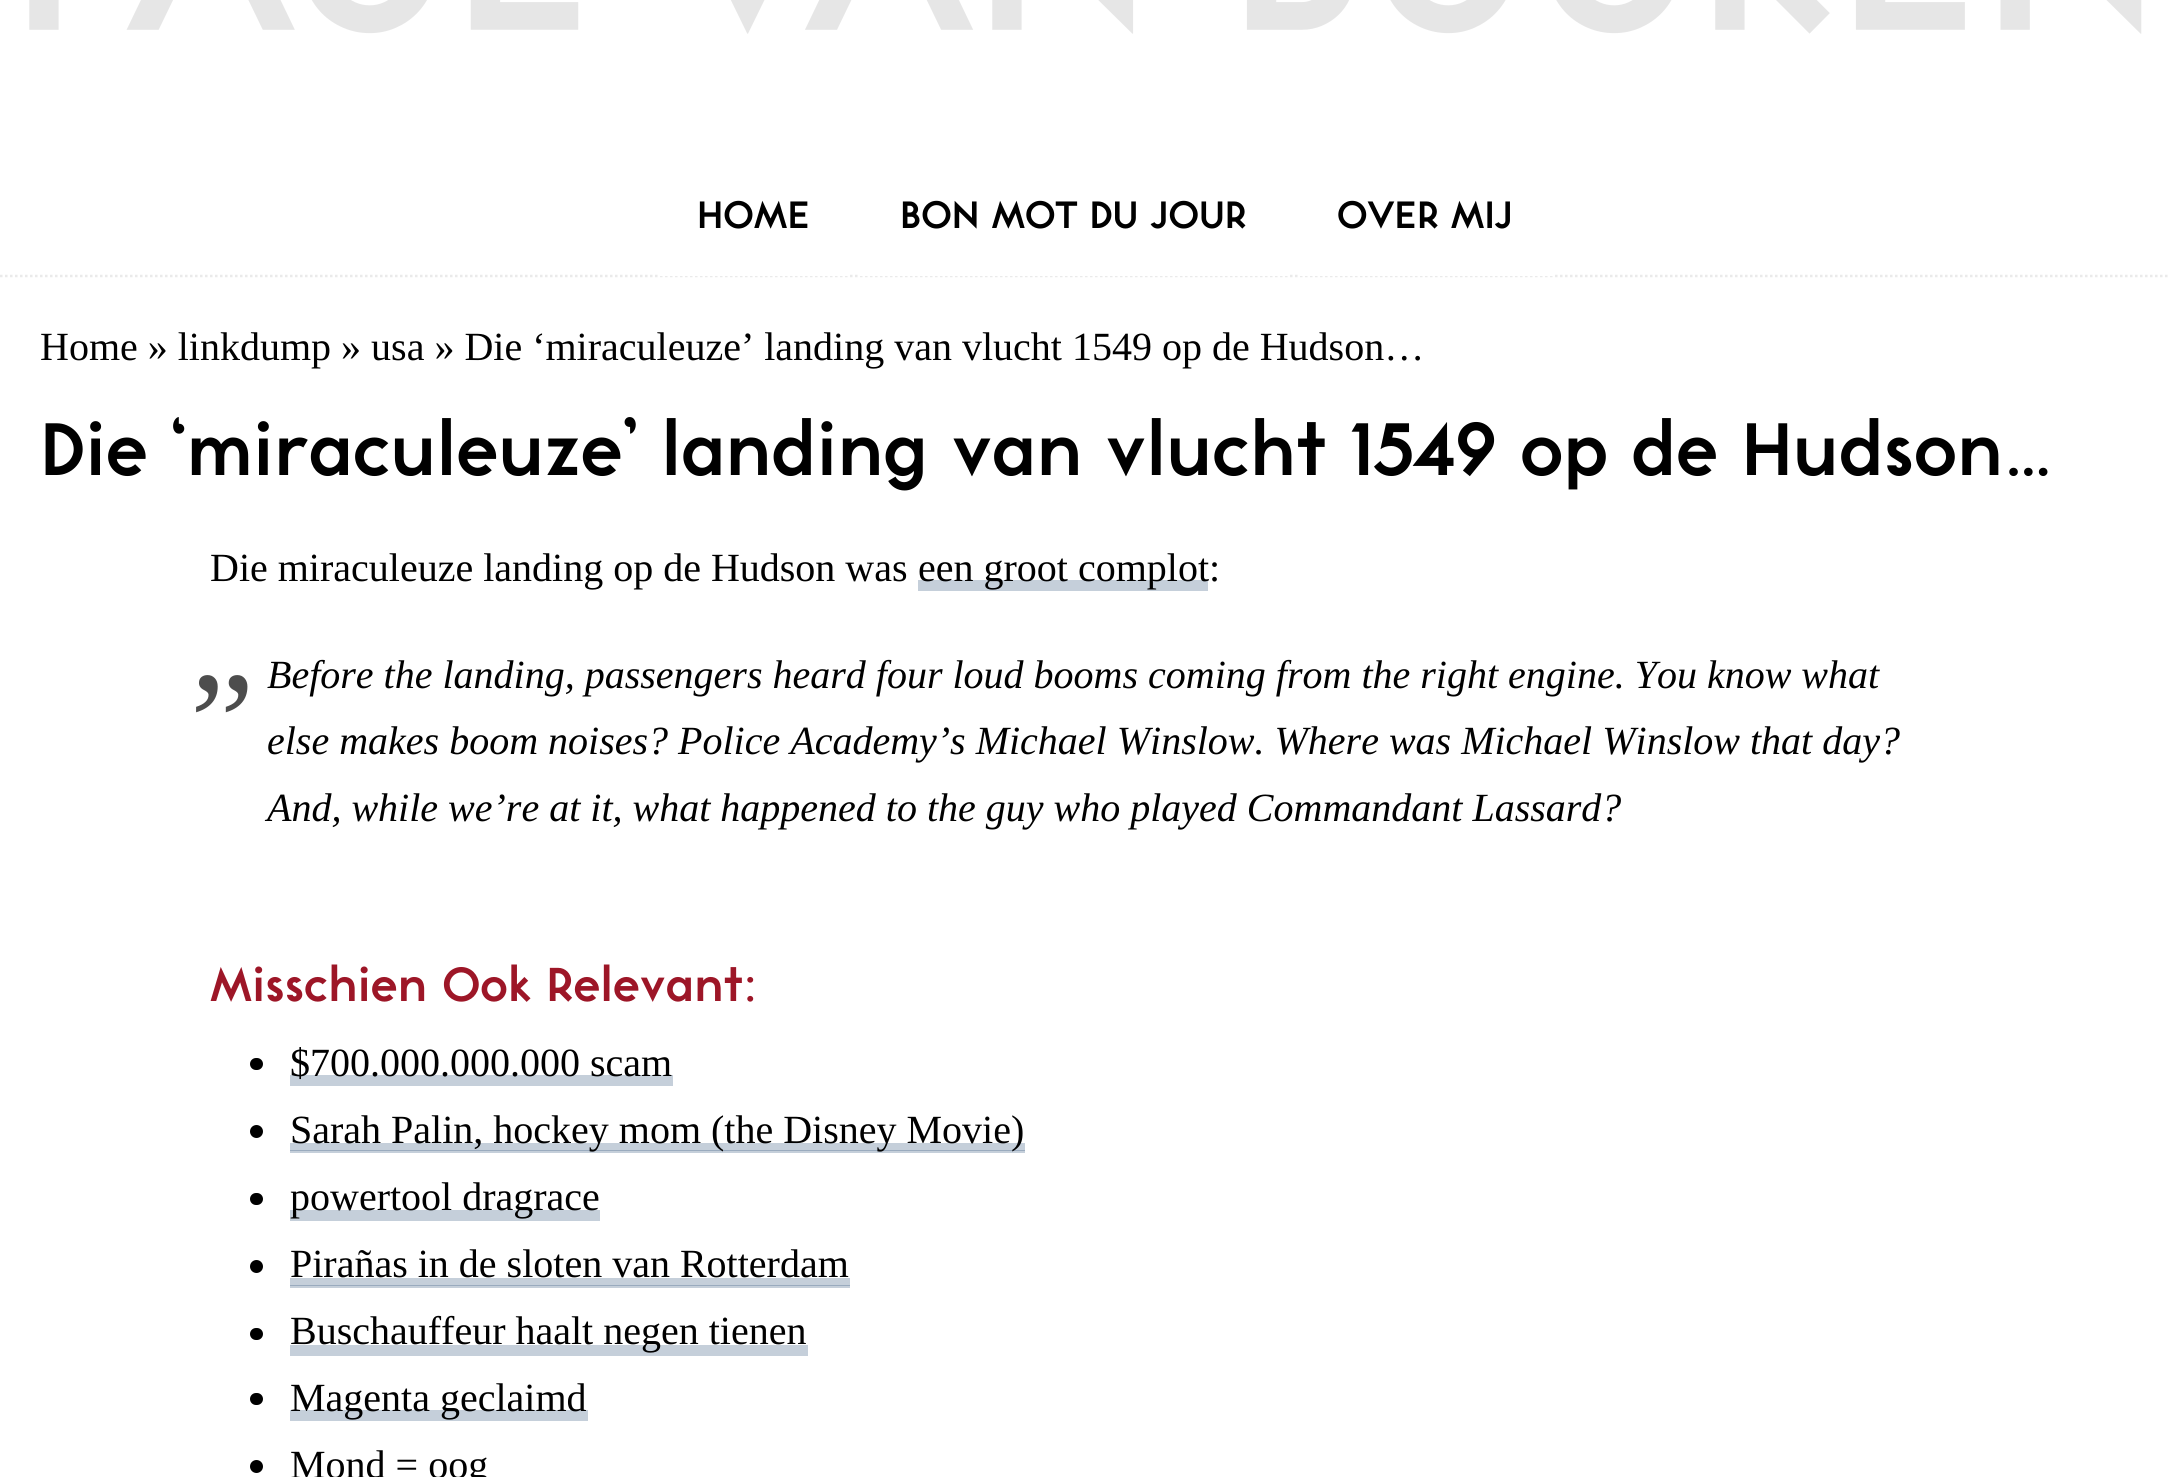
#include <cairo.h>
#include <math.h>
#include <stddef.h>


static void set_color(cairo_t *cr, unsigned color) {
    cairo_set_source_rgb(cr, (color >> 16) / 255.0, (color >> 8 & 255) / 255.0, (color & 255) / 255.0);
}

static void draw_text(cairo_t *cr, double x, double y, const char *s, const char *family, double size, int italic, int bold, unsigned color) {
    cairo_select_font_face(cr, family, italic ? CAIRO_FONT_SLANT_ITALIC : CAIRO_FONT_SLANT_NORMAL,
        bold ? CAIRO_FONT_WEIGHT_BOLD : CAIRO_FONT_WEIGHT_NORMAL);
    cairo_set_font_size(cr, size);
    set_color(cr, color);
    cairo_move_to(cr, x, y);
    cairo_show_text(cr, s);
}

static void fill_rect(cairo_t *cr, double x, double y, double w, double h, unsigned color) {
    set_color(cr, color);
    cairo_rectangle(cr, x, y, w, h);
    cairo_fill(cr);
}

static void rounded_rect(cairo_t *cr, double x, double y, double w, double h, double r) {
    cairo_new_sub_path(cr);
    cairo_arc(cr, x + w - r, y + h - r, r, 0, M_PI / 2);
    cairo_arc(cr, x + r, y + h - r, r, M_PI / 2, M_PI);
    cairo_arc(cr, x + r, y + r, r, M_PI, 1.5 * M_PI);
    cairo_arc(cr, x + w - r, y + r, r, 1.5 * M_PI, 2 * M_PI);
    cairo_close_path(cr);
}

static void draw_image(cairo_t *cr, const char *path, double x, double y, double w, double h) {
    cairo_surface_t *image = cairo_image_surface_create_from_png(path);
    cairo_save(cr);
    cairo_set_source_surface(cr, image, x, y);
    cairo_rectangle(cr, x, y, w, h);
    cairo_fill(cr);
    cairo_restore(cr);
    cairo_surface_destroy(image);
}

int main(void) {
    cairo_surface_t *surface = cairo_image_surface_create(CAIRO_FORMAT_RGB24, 2169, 1477);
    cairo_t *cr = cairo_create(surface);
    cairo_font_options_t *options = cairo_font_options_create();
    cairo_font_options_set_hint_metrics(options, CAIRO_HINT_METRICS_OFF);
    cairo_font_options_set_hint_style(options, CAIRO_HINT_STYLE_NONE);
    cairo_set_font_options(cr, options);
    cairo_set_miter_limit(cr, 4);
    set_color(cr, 0xFFFFFF);
    cairo_paint(cr);
    fill_rect(cr, 290, 1286, 560, 2, 0xC5CFDA);
    fill_rect(cr, 290, 1151, 735, 2, 0xC5CFDA);
    draw_image(cr, "assets/img1.png", 29, 0, 2113, 34);
    cairo_new_path(cr);
    cairo_move_to(cr, 0, 276);
    cairo_line_to(cr, 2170, 276);
    set_color(cr, 0xEAEAEA);
    cairo_set_line_width(cr, 2.5);
    cairo_set_dash(cr, (double[]){2.5, 2.5}, 2, 0);
    cairo_stroke(cr);
    fill_rect(cr, 658, 274, 192, 2, 0xFFFFFF);
    draw_text(cr, 697, 228, "HOME", "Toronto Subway", 40, 0, 1, 0x000000);
    fill_rect(cr, 860, 274, 428, 2, 0xFFFFFF);
    draw_text(cr, 900, 228, "BON MOT DU JOUR", "Toronto Subway", 40, 0, 1, 0x000000);
    fill_rect(cr, 1298, 274, 255, 2, 0xFFFFFF);
    draw_text(cr, 1337, 228, "OVER MIJ", "Toronto Subway", 40, 0, 1, 0x000000);
    draw_text(cr, 40, 360, "Home » linkdump » usa » Die ‘miraculeuze’ landing van vlucht 1549 op de Hudson…", "Liberation Serif", 40, 0, 0, 0x000000);
    draw_text(cr, 40, 475, "Die ‘miraculeuze’ landing van vlucht 1549 op de Hudson…", "Toronto Subway", 78, 0, 1, 0x000000);
    draw_text(cr, 210, 581, "Die miraculeuze landing op de Hudson was", "Liberation Serif", 40, 0, 0, 0x000000);
    fill_rect(cr, 918, 580, 290, 11, 0xC5CFDA);
    draw_text(cr, 918, 581, "een groot complot:", "Liberation Serif", 40, 0, 0, 0x000000);
    draw_text(cr, 190, 690, "„", "Liberation Serif", 145, 0, 0, 0x4D4D4D);
    draw_text(cr, 267, 688, "Before the landing, passengers heard four loud booms coming from the right engine. You know what", "Liberation Serif", 40, 1, 0, 0x000000);
    draw_text(cr, 267, 754, "else makes boom noises? Police Academy’s Michael Winslow. Where was Michael Winslow that day?", "Liberation Serif", 40, 1, 0, 0x000000);
    draw_text(cr, 267, 821, "And, while we’re at it, what happened to the guy who played Commandant Lassard?", "Liberation Serif", 40, 1, 0, 0x000000);
    draw_text(cr, 210, 1001, "Misschien Ook Relevant:", "Toronto Subway", 50, 0, 1, 0x9D1627);
    set_color(cr, 0x000000);
    rounded_rect(cr, 250, 1058, 13, 12, 6);
    cairo_fill(cr);
    fill_rect(cr, 290, 1075, 383, 11, 0xC5CFDA);
    draw_text(cr, 290, 1076, "$700.000.000.000 scam", "Liberation Serif", 40, 0, 0, 0x000000);
    cairo_new_path(cr);
    cairo_arc(cr, 256.5, 1131.5, 6.5, 0, 2 * M_PI);
    cairo_fill(cr);
    fill_rect(cr, 290, 1143, 735, 7, 0xC5CFDA);
    fill_rect(cr, 290, 1150, 735, 1, 0x9AABBE);
    draw_text(cr, 290, 1143, "Sarah Palin, hockey mom (the Disney Movie)", "Liberation Serif", 40, 0, 0, 0x000000);
    rounded_rect(cr, 250, 1193, 13, 12, 6);
    cairo_fill(cr);
    fill_rect(cr, 290, 1210, 310, 11, 0xC5CFDA);
    draw_text(cr, 290, 1210, "powertool dragrace", "Liberation Serif", 40, 0, 0, 0x000000);
    cairo_new_path(cr);
    cairo_arc(cr, 256.5, 1266.5, 6.5, 0, 2 * M_PI);
    cairo_fill(cr);
    draw_text(cr, 290, 1277, "Pirañas in de sloten van Rotterdam", "Liberation Serif", 40, 0, 0, 0x000000);
    fill_rect(cr, 290, 1278, 560, 7, 0xC5CFDA);
    fill_rect(cr, 290, 1285, 560, 1, 0x9AABBE);
    set_color(cr, 0x000000);
    rounded_rect(cr, 250, 1328, 13, 12, 6);
    cairo_fill(cr);
    fill_rect(cr, 290, 1345, 518, 11, 0xC5CFDA);
    draw_text(cr, 290, 1344, "Buschauffeur haalt negen tienen", "Liberation Serif", 40, 0, 0, 0x000000);
    rounded_rect(cr, 250, 1393, 13, 12, 6);
    cairo_fill(cr);
    fill_rect(cr, 290, 1410, 298, 11, 0xC5CFDA);
    draw_text(cr, 290, 1411, "Magenta geclaimd", "Liberation Serif", 40, 0, 0, 0x000000);
    cairo_new_path(cr);
    cairo_arc(cr, 256.5, 1466.5, 6.5, 0, 2 * M_PI);
    cairo_fill(cr);
    draw_text(cr, 290, 1478, "Mond = oog", "Liberation Serif", 40, 0, 0, 0x000000);
    cairo_surface_write_to_png(surface, "output.png");
    cairo_font_options_destroy(options);
    cairo_destroy(cr);
    cairo_surface_destroy(surface);
    return 0;
}
